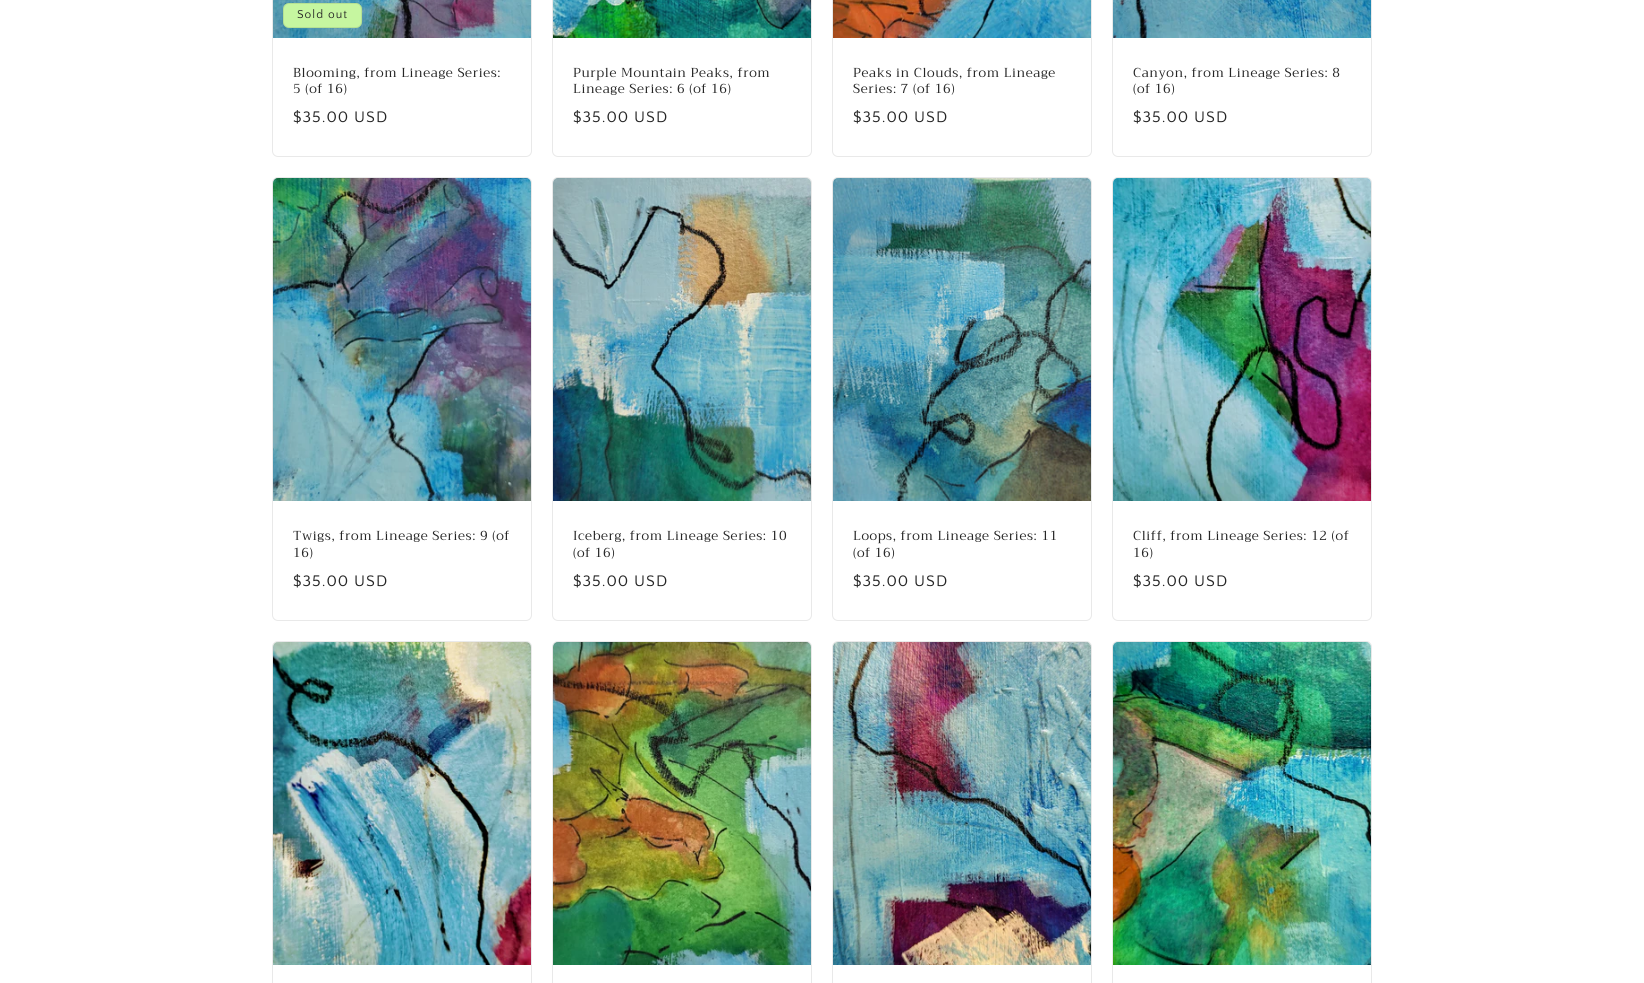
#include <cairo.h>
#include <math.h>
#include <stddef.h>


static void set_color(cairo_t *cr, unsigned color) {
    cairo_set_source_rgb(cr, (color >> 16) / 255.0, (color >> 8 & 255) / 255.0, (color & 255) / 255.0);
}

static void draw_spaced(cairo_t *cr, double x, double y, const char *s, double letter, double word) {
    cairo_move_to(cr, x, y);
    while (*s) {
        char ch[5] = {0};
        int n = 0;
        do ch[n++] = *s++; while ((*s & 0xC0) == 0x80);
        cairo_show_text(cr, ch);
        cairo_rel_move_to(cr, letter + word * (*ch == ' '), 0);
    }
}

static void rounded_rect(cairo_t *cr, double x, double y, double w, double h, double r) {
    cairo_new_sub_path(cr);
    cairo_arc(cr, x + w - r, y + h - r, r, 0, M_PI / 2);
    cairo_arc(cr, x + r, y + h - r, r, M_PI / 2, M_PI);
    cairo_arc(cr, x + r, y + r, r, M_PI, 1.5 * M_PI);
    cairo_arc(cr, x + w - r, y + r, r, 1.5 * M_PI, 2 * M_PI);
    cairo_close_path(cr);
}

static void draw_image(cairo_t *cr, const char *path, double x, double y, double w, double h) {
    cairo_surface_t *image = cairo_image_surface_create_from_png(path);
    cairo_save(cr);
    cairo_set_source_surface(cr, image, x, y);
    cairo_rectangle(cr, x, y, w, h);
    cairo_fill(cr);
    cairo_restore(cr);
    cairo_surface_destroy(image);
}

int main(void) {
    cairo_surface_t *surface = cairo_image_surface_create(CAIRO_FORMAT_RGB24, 1644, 983);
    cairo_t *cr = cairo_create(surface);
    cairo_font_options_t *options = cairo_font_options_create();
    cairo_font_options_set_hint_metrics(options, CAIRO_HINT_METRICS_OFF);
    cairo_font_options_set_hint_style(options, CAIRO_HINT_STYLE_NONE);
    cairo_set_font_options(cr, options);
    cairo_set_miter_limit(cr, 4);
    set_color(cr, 0xFFFFFF);
    cairo_paint(cr);
    rounded_rect(cr, 272.5, -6.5, 259, 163, 5.5);
    set_color(cr, 0xE9E9E9);
    cairo_set_line_width(cr, 1);
    cairo_stroke(cr);
    draw_image(cr, "assets/img1.png", 273, 0, 258, 38);
    set_color(cr, 0xC6F6A0);
    rounded_rect(cr, 283, 3, 79, 25, 6);
    cairo_fill(cr);
    rounded_rect(cr, 283.5, 3.5, 78, 24, 5.5);
    cairo_set_source_rgba(cr, 0.145, 0.145, 0.145, 0.1);
    cairo_stroke(cr);
    cairo_select_font_face(cr, "Quattrocento Sans", CAIRO_FONT_SLANT_NORMAL, CAIRO_FONT_WEIGHT_NORMAL);
    cairo_set_font_size(cr, 12);
    set_color(cr, 0x252525);
    draw_spaced(cr, 297, 18, "Sold out", 1, 0);
    cairo_select_font_face(cr, "Trirong", CAIRO_FONT_SLANT_NORMAL, CAIRO_FONT_WEIGHT_NORMAL);
    cairo_set_font_size(cr, 13);
    draw_spaced(cr, 293, 77, "Blooming, from Lineage Series:", 0.6, 0);
    draw_spaced(cr, 293, 93, "5 (of 16)", 0.6, 0);
    cairo_select_font_face(cr, "Quattrocento Sans", CAIRO_FONT_SLANT_NORMAL, CAIRO_FONT_WEIGHT_NORMAL);
    cairo_set_font_size(cr, 16);
    draw_spaced(cr, 293, 122, "$35.00 USD", 1, 0);
    rounded_rect(cr, 552.5, -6.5, 259, 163, 5.5);
    set_color(cr, 0xE9E9E9);
    cairo_stroke(cr);
    draw_image(cr, "assets/img2.png", 553, 0, 258, 38);
    cairo_select_font_face(cr, "Trirong", CAIRO_FONT_SLANT_NORMAL, CAIRO_FONT_WEIGHT_NORMAL);
    cairo_set_font_size(cr, 13);
    set_color(cr, 0x252525);
    draw_spaced(cr, 573, 77, "Purple Mountain Peaks, from", 0.6, 0);
    draw_spaced(cr, 573, 93, "Lineage Series: 6 (of 16)", 0.6, 0);
    cairo_select_font_face(cr, "Quattrocento Sans", CAIRO_FONT_SLANT_NORMAL, CAIRO_FONT_WEIGHT_NORMAL);
    cairo_set_font_size(cr, 16);
    draw_spaced(cr, 573, 122, "$35.00 USD", 1, 0);
    rounded_rect(cr, 832.5, -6.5, 259, 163, 5.5);
    set_color(cr, 0xE9E9E9);
    cairo_stroke(cr);
    draw_image(cr, "assets/img3.png", 833, 0, 258, 38);
    cairo_select_font_face(cr, "Trirong", CAIRO_FONT_SLANT_NORMAL, CAIRO_FONT_WEIGHT_NORMAL);
    cairo_set_font_size(cr, 13);
    set_color(cr, 0x252525);
    draw_spaced(cr, 853, 77, "Peaks in Clouds, from Lineage", 0.6, 0);
    draw_spaced(cr, 853, 93, "Series: 7 (of 16)", 0.6, 0);
    cairo_select_font_face(cr, "Quattrocento Sans", CAIRO_FONT_SLANT_NORMAL, CAIRO_FONT_WEIGHT_NORMAL);
    cairo_set_font_size(cr, 16);
    draw_spaced(cr, 853, 122, "$35.00 USD", 1, 0);
    rounded_rect(cr, 1112.5, -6.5, 259, 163, 5.5);
    set_color(cr, 0xE9E9E9);
    cairo_stroke(cr);
    draw_image(cr, "assets/img4.png", 1113, 0, 258, 38);
    cairo_select_font_face(cr, "Trirong", CAIRO_FONT_SLANT_NORMAL, CAIRO_FONT_WEIGHT_NORMAL);
    cairo_set_font_size(cr, 13);
    set_color(cr, 0x252525);
    draw_spaced(cr, 1133, 77, "Canyon, from Lineage Series: 8", 0.6, 0);
    draw_spaced(cr, 1133, 93, "(of 16)", 0.6, 0);
    cairo_select_font_face(cr, "Quattrocento Sans", CAIRO_FONT_SLANT_NORMAL, CAIRO_FONT_WEIGHT_NORMAL);
    cairo_set_font_size(cr, 16);
    draw_spaced(cr, 1133, 122, "$35.00 USD", 1, 0);
    rounded_rect(cr, 272.5, 177.5, 259, 443, 5.5);
    set_color(cr, 0xE9E9E9);
    cairo_stroke(cr);
    draw_image(cr, "assets/img5.png", 273, 178, 258, 323);
    cairo_select_font_face(cr, "Trirong", CAIRO_FONT_SLANT_NORMAL, CAIRO_FONT_WEIGHT_NORMAL);
    cairo_set_font_size(cr, 13);
    set_color(cr, 0x252525);
    draw_spaced(cr, 293, 540, "Twigs, from Lineage Series: 9 (of", 0.6, 0);
    draw_spaced(cr, 293, 557, "16)", 0.6, 0);
    cairo_select_font_face(cr, "Quattrocento Sans", CAIRO_FONT_SLANT_NORMAL, CAIRO_FONT_WEIGHT_NORMAL);
    cairo_set_font_size(cr, 16);
    draw_spaced(cr, 293, 586, "$35.00 USD", 1, 0);
    rounded_rect(cr, 552.5, 177.5, 259, 443, 5.5);
    set_color(cr, 0xE9E9E9);
    cairo_stroke(cr);
    draw_image(cr, "assets/img6.png", 553, 178, 258, 323);
    cairo_select_font_face(cr, "Trirong", CAIRO_FONT_SLANT_NORMAL, CAIRO_FONT_WEIGHT_NORMAL);
    cairo_set_font_size(cr, 13);
    set_color(cr, 0x252525);
    draw_spaced(cr, 573, 540, "Iceberg, from Lineage Series: 10", 0.6, 0);
    draw_spaced(cr, 573, 557, "(of 16)", 0.6, 0);
    cairo_select_font_face(cr, "Quattrocento Sans", CAIRO_FONT_SLANT_NORMAL, CAIRO_FONT_WEIGHT_NORMAL);
    cairo_set_font_size(cr, 16);
    draw_spaced(cr, 573, 586, "$35.00 USD", 1, 0);
    rounded_rect(cr, 832.5, 177.5, 259, 443, 5.5);
    set_color(cr, 0xE9E9E9);
    cairo_stroke(cr);
    draw_image(cr, "assets/img7.png", 833, 178, 258, 323);
    cairo_select_font_face(cr, "Trirong", CAIRO_FONT_SLANT_NORMAL, CAIRO_FONT_WEIGHT_NORMAL);
    cairo_set_font_size(cr, 13);
    set_color(cr, 0x252525);
    draw_spaced(cr, 853, 540, "Loops, from Lineage Series: 11", 0.6, 0);
    draw_spaced(cr, 853, 557, "(of 16)", 0.6, 0);
    cairo_select_font_face(cr, "Quattrocento Sans", CAIRO_FONT_SLANT_NORMAL, CAIRO_FONT_WEIGHT_NORMAL);
    cairo_set_font_size(cr, 16);
    draw_spaced(cr, 853, 586, "$35.00 USD", 1, 0);
    rounded_rect(cr, 1112.5, 177.5, 259, 443, 5.5);
    set_color(cr, 0xE9E9E9);
    cairo_stroke(cr);
    draw_image(cr, "assets/img8.png", 1113, 178, 258, 323);
    cairo_select_font_face(cr, "Trirong", CAIRO_FONT_SLANT_NORMAL, CAIRO_FONT_WEIGHT_NORMAL);
    cairo_set_font_size(cr, 13);
    set_color(cr, 0x252525);
    draw_spaced(cr, 1133, 540, "Cliff, from Lineage Series: 12 (of", 0.6, 0);
    draw_spaced(cr, 1133, 557, "16)", 0.6, 0);
    cairo_select_font_face(cr, "Quattrocento Sans", CAIRO_FONT_SLANT_NORMAL, CAIRO_FONT_WEIGHT_NORMAL);
    cairo_set_font_size(cr, 16);
    draw_spaced(cr, 1133, 586, "$35.00 USD", 1, 0);
    rounded_rect(cr, 272.5, 641.5, 259, 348, 5.5);
    set_color(cr, 0xE9E9E9);
    cairo_stroke(cr);
    draw_image(cr, "assets/img9.png", 273, 642, 258, 323);
    rounded_rect(cr, 552.5, 641.5, 259, 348, 5.5);
    cairo_stroke(cr);
    draw_image(cr, "assets/img10.png", 553, 642, 258, 323);
    rounded_rect(cr, 832.5, 641.5, 259, 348, 5.5);
    cairo_stroke(cr);
    draw_image(cr, "assets/img11.png", 833, 642, 258, 323);
    rounded_rect(cr, 1112.5, 641.5, 259, 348, 5.5);
    cairo_stroke(cr);
    draw_image(cr, "assets/img12.png", 1113, 642, 258, 323);
    cairo_surface_write_to_png(surface, "output.png");
    cairo_font_options_destroy(options);
    cairo_destroy(cr);
    cairo_surface_destroy(surface);
    return 0;
}
